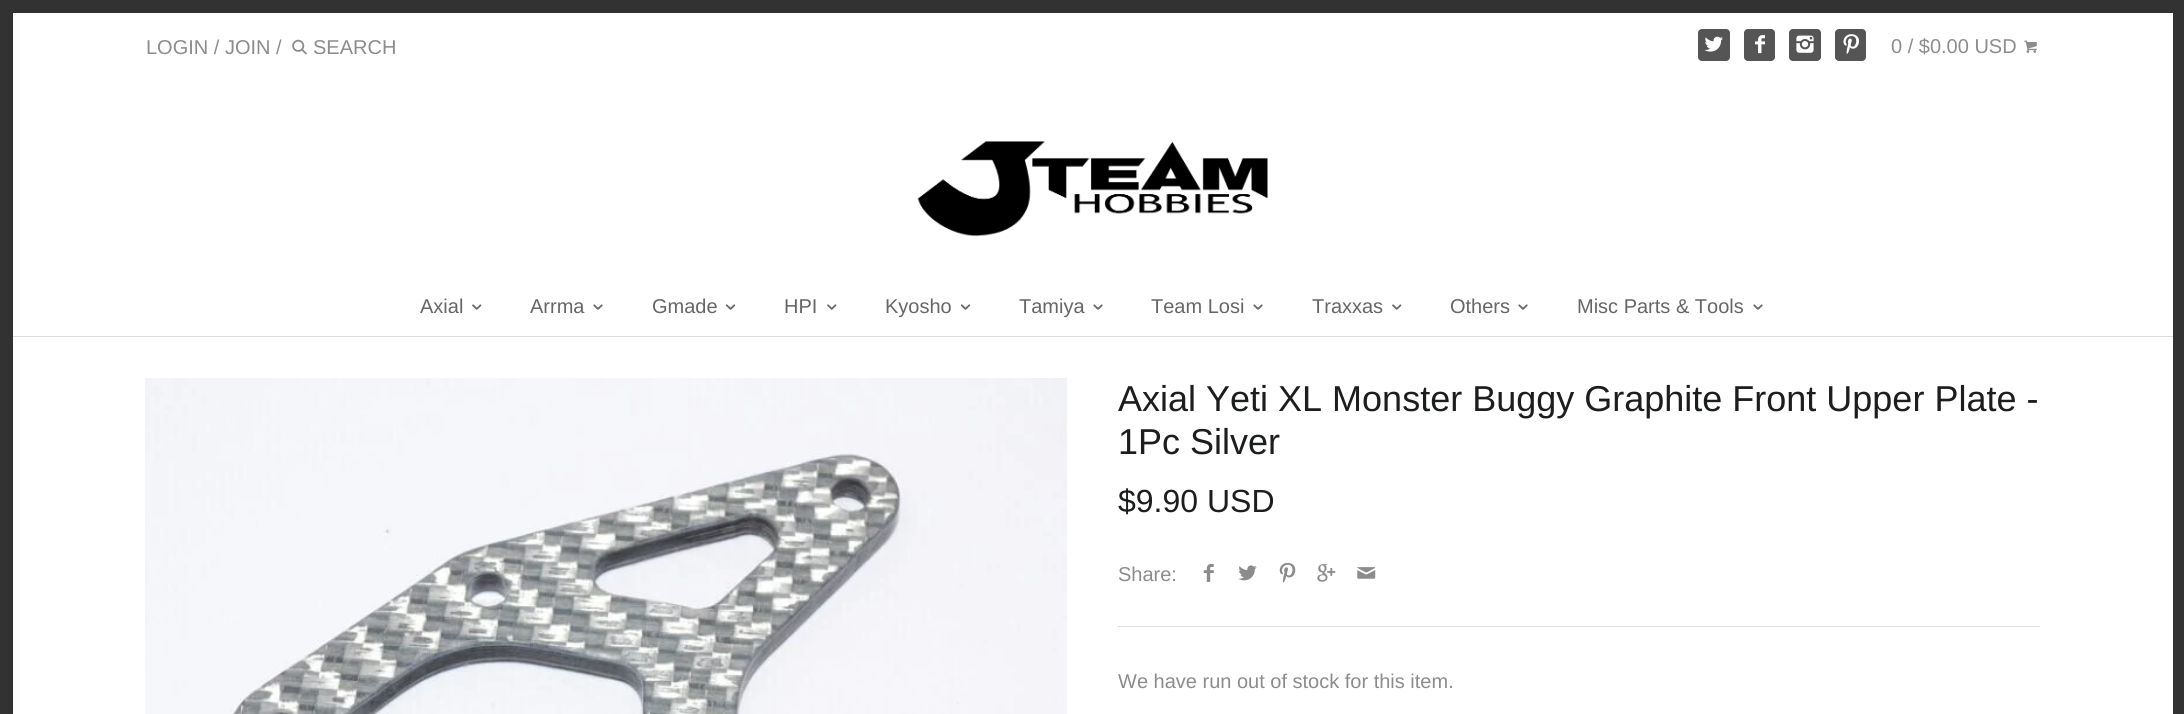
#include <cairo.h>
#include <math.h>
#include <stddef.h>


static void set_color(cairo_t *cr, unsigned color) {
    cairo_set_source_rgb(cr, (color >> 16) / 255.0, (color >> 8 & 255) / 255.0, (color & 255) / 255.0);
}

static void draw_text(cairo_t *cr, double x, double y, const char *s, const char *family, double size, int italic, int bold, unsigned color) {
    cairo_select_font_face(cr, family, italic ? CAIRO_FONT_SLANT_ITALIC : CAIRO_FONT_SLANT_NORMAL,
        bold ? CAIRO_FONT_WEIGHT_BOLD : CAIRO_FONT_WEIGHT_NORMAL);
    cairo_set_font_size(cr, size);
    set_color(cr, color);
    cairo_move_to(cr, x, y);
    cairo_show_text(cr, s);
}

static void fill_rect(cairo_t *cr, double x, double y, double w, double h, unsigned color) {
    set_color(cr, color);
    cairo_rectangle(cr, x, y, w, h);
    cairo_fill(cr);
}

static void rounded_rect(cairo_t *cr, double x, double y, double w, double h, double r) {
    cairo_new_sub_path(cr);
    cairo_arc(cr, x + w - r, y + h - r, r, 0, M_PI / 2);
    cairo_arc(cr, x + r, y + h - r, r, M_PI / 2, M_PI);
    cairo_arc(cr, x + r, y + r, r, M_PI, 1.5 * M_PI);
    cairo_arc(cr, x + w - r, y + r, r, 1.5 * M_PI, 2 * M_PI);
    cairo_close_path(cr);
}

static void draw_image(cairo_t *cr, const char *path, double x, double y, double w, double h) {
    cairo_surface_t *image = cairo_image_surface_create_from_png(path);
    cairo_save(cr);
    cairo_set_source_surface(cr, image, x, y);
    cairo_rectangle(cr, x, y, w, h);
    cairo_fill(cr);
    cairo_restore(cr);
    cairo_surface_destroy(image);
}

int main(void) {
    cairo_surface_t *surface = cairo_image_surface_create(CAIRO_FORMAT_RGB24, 2184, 714);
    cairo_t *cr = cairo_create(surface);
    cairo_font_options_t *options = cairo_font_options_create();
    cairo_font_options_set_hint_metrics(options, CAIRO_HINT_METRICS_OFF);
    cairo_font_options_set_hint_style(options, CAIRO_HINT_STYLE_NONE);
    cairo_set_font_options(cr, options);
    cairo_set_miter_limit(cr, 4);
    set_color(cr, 0xFFFFFF);
    cairo_paint(cr);
    cairo_rectangle(cr, 6.5, 6.5, 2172, 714);
    set_color(cr, 0x323232);
    cairo_set_line_width(cr, 13);
    cairo_stroke(cr);
    fill_rect(cr, 2172, 13, 1, 701, 0xFFFFFF);
    draw_text(cr, 146, 54, "LOGIN / JOIN /", "Liberation Sans", 20, 0, 0, 0x8B8C8C);
    draw_image(cr, "assets/img1.png", 292, 39, 15, 16);
    draw_text(cr, 313, 54, "SEARCH", "Liberation Sans", 20, 0, 0, 0x8B8C8C);
    set_color(cr, 0x555555);
    rounded_rect(cr, 1698, 29, 32, 32, 4);
    cairo_fill(cr);
    draw_image(cr, "assets/img2.png", 1704, 36, 19, 16);
    rounded_rect(cr, 1744, 29, 31, 32, 4);
    cairo_fill(cr);
    draw_image(cr, "assets/img3.png", 1755, 35, 10, 19);
    rounded_rect(cr, 1789, 29, 32, 32, 4);
    cairo_fill(cr);
    draw_image(cr, "assets/img4.png", 1796, 35, 18, 18);
    rounded_rect(cr, 1835, 29, 31, 32, 4);
    cairo_fill(cr);
    draw_image(cr, "assets/img5.png", 1843, 34, 16, 20);
    draw_text(cr, 1891, 53, "0 / $0.00 USD", "Liberation Sans", 20, 0, 0, 0x8B8C8C);
    draw_image(cr, "assets/img6.png", 2024, 40, 13, 13);
    draw_image(cr, "assets/img7.png", 917, 141, 351, 96);
    draw_text(cr, 420, 313, "Axial", "Liberation Sans", 20, 0, 0, 0x666666);
    draw_image(cr, "assets/img8.png", 472, 304, 10, 6);
    draw_text(cr, 530, 313, "Arrma", "Liberation Sans", 20, 0, 0, 0x666666);
    draw_image(cr, "assets/img9.png", 593, 304, 10, 6);
    draw_text(cr, 652, 313, "Gmade", "Liberation Sans", 20, 0, 0, 0x666666);
    draw_image(cr, "assets/img10.png", 725, 304, 11, 6);
    draw_text(cr, 784, 313, "HPI", "Liberation Sans", 20, 0, 0, 0x666666);
    draw_image(cr, "assets/img8.png", 827, 304, 10, 6);
    draw_text(cr, 885, 313, "Kyosho", "Liberation Sans", 20, 0, 0, 0x666666);
    draw_image(cr, "assets/img10.png", 960, 304, 11, 6);
    draw_text(cr, 1019, 313, "Tamiya", "Liberation Sans", 20, 0, 0, 0x666666);
    draw_image(cr, "assets/img9.png", 1093, 304, 10, 6);
    draw_text(cr, 1151, 313, "Team Losi", "Liberation Sans", 20, 0, 0, 0x666666);
    draw_image(cr, "assets/img9.png", 1253, 304, 10, 6);
    draw_text(cr, 1312, 313, "Traxxas", "Liberation Sans", 20, 0, 0, 0x666666);
    draw_image(cr, "assets/img8.png", 1392, 304, 10, 6);
    draw_text(cr, 1450, 313, "Others", "Liberation Sans", 20, 0, 0, 0x666666);
    draw_image(cr, "assets/img9.png", 1518, 304, 10, 6);
    draw_text(cr, 1577, 313, "Misc Parts & Tools", "Liberation Sans", 20, 0, 0, 0x666666);
    draw_image(cr, "assets/img9.png", 1753, 304, 10, 6);
    fill_rect(cr, 13, 336, 2160, 1, 0xDDDDDD);
    draw_image(cr, "assets/img11.png", 145, 378, 922, 336);
    fill_rect(cr, 1118, 626, 922, 1, 0xDDDDDD);
    draw_text(cr, 1118, 411, "Axial Yeti XL Monster Buggy Graphite Front Upper Plate -", "Liberation Sans", 36, 0, 0, 0x1C1D1D);
    draw_text(cr, 1118, 454, "1Pc Silver", "Liberation Sans", 36, 0, 0, 0x1C1D1D);
    draw_text(cr, 1118, 512, "$9.90 USD", "Liberation Sans", 32, 0, 0, 0x1C1D1D);
    draw_text(cr, 1118, 581, "Share:", "Liberation Sans", 20, 0, 0, 0x8B8C8C);
    draw_image(cr, "assets/img12.png", 1203, 563, 11, 19);
    draw_image(cr, "assets/img13.png", 1238, 565, 19, 16);
    draw_image(cr, "assets/img14.png", 1279, 562, 17, 21);
    draw_image(cr, "assets/img15.png", 1317, 564, 19, 18);
    draw_image(cr, "assets/img16.png", 1357, 567, 19, 12);
    draw_text(cr, 1118, 688, "We have run out of stock for this item.", "Liberation Sans", 20, 0, 0, 0x8B8C8C);
    cairo_surface_write_to_png(surface, "output.png");
    cairo_font_options_destroy(options);
    cairo_destroy(cr);
    cairo_surface_destroy(surface);
    return 0;
}
